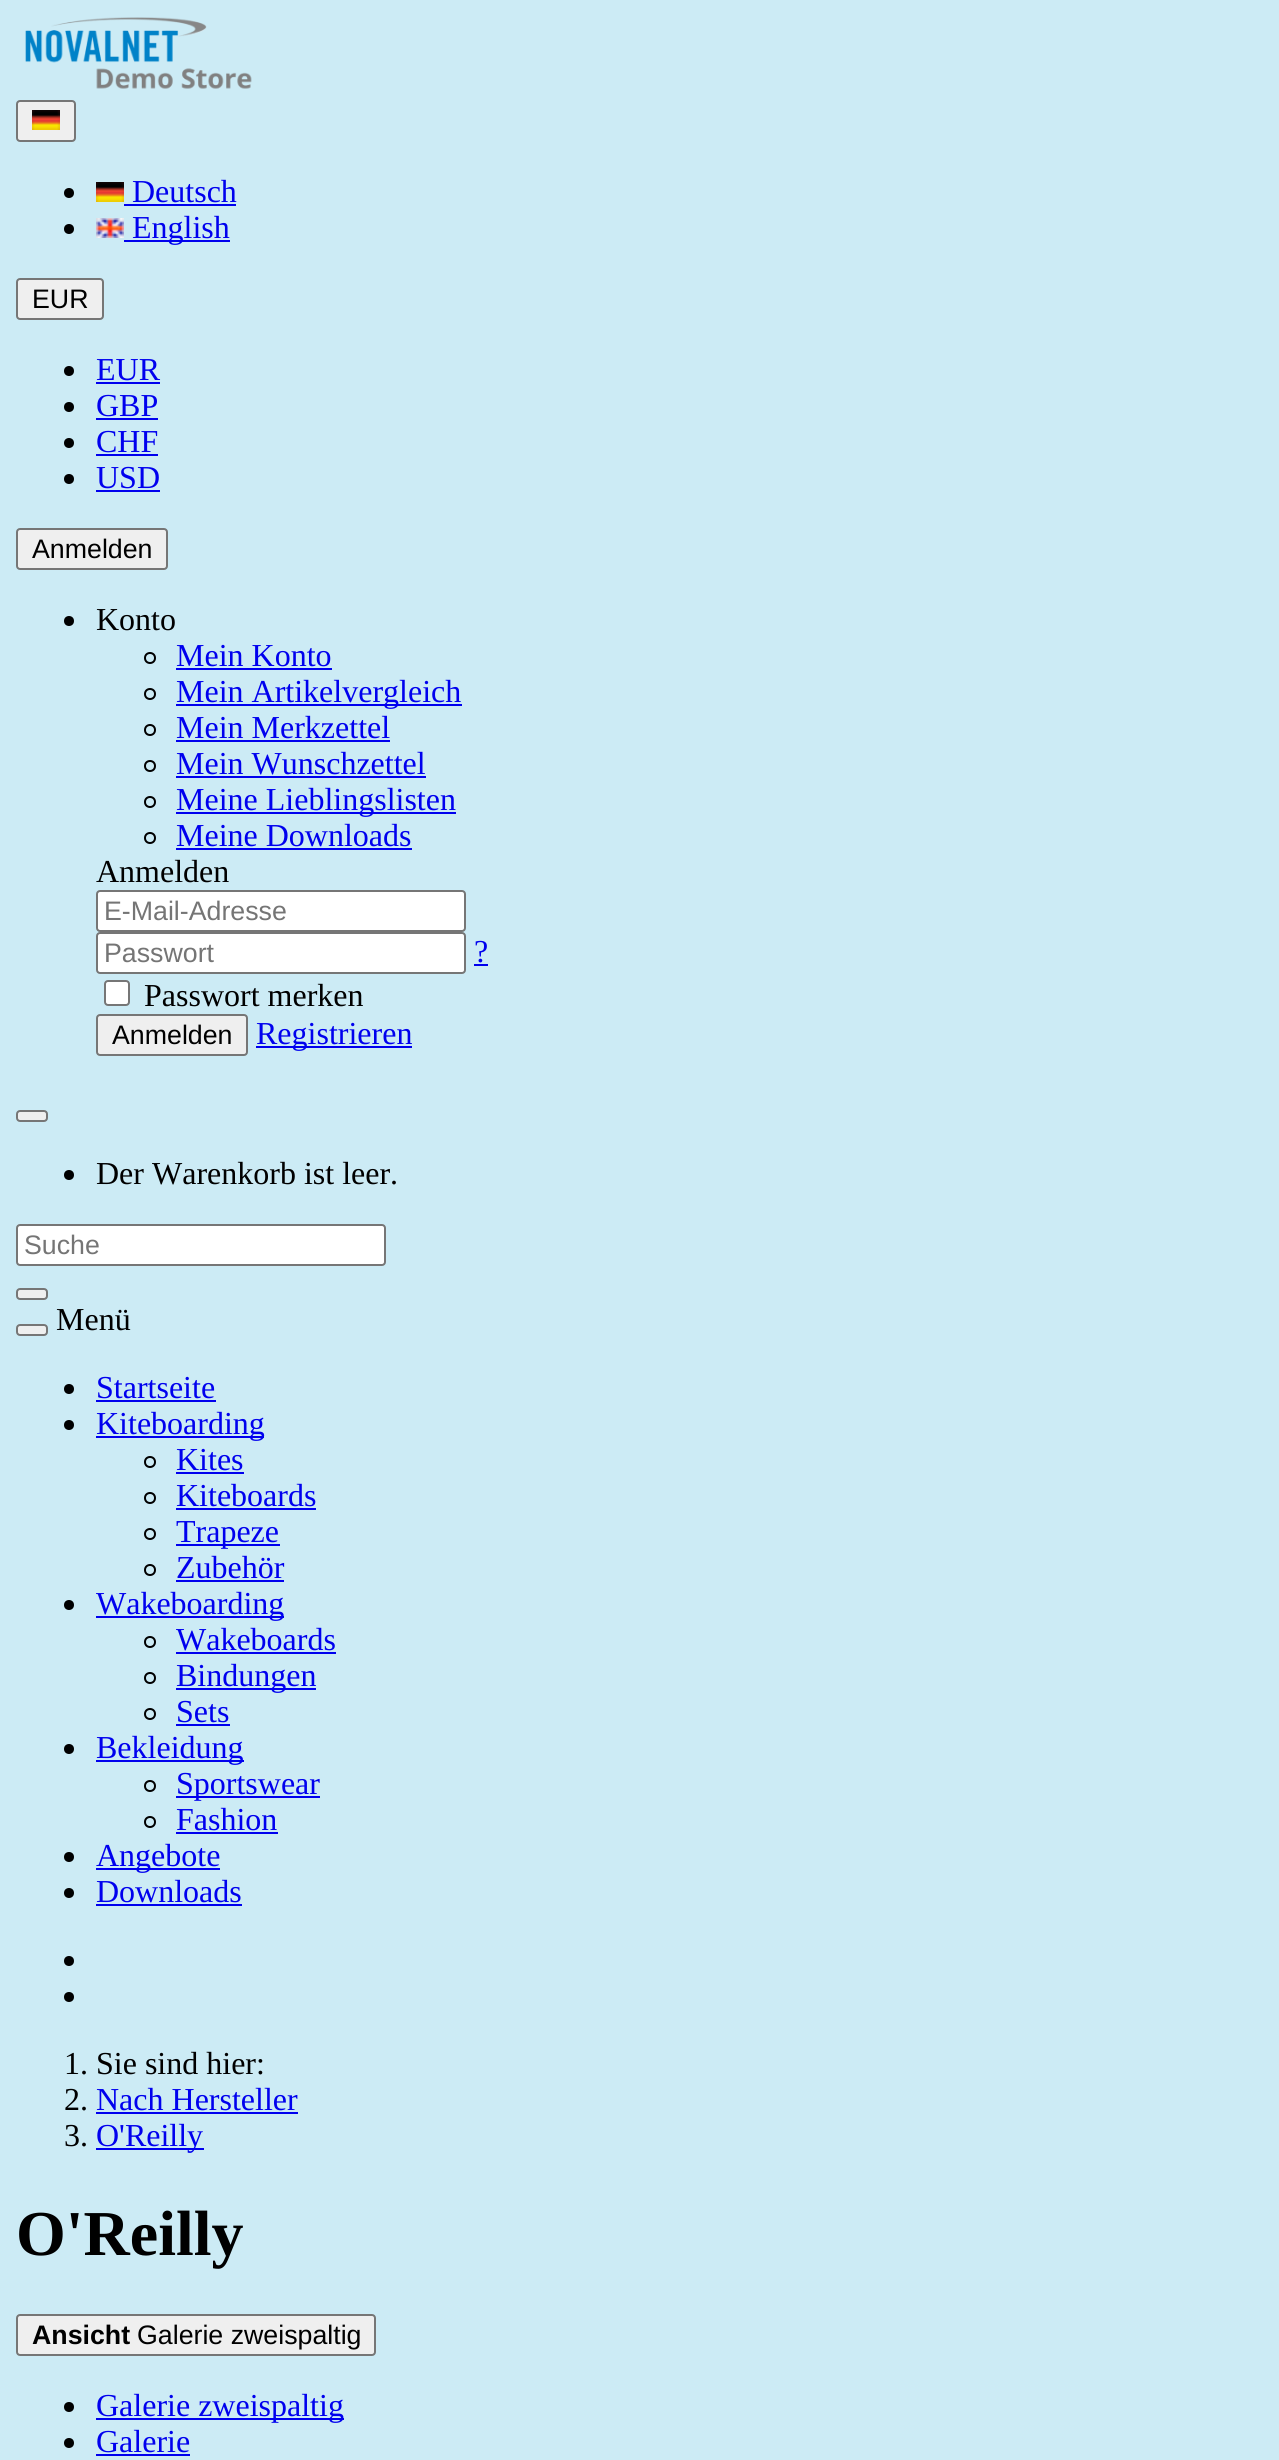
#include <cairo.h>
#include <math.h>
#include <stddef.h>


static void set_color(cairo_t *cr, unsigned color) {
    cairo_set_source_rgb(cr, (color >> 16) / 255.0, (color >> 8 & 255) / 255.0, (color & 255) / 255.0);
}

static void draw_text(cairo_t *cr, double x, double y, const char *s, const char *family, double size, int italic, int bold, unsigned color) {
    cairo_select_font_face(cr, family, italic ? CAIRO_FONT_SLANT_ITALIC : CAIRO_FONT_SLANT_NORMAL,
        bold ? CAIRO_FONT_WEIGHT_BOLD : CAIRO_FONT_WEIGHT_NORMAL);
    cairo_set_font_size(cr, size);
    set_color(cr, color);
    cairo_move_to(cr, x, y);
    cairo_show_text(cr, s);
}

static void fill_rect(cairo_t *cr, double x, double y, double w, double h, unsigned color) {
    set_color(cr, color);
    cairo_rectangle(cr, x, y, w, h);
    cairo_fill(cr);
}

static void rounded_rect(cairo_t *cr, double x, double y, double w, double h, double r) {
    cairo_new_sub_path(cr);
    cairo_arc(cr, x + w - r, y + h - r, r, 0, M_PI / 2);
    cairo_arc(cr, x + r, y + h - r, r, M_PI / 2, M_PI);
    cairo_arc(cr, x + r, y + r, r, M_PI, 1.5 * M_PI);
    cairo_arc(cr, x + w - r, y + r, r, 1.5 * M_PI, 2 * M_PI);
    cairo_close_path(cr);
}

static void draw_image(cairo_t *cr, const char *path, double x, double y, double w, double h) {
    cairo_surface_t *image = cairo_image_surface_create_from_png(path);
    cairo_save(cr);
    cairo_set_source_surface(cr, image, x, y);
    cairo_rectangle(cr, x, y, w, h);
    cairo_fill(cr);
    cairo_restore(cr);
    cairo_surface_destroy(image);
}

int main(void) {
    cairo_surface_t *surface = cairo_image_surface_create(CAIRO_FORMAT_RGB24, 1279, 2460);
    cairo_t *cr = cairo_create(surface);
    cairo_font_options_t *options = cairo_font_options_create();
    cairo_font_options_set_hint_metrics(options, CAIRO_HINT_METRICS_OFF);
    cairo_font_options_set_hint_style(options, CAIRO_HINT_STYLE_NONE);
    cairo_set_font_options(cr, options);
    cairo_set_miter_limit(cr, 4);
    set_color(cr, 0xCCEBF5);
    cairo_paint(cr);
    draw_image(cr, "assets/img1.png", 25, 17, 227, 72);
    set_color(cr, 0xEFEFEF);
    rounded_rect(cr, 17, 101, 58, 40, 3);
    cairo_fill_preserve(cr);
    set_color(cr, 0x767676);
    cairo_stroke(cr);
    draw_image(cr, "assets/img2.png", 32, 110, 28, 20);
    set_color(cr, 0x000000);
    cairo_arc(cr, 69, 193, 5, 0, 2 * M_PI);
    cairo_fill(cr);
    draw_image(cr, "assets/img2.png", 96, 182, 28, 20);
    draw_text(cr, 132, 202, "Deutsch", "Liberation Serif", 32, 0, 0, 0x0000EE);
    fill_rect(cr, 124, 204, 112, 2, 0x0000EE);
    set_color(cr, 0x000000);
    cairo_new_path(cr);
    cairo_arc(cr, 69, 229, 5, 0, 2 * M_PI);
    cairo_fill(cr);
    draw_image(cr, "assets/img3.png", 96, 218, 28, 20);
    fill_rect(cr, 124, 240, 106, 2, 0x0000EE);
    draw_text(cr, 132, 238, "English", "Liberation Serif", 32, 0, 0, 0x0000EE);
    set_color(cr, 0xEFEFEF);
    rounded_rect(cr, 17, 279, 86, 40, 3);
    cairo_fill_preserve(cr);
    set_color(cr, 0x767676);
    cairo_stroke(cr);
    draw_text(cr, 32, 308, "EUR", "Liberation Sans", 26.75, 0, 0, 0x000000);
    cairo_new_path(cr);
    cairo_arc(cr, 69, 371, 5, 0, 2 * M_PI);
    cairo_fill(cr);
    draw_text(cr, 96, 380, "EUR", "Liberation Serif", 32, 0, 0, 0x0000EE);
    fill_rect(cr, 96, 382, 64, 2, 0x0000EE);
    set_color(cr, 0x000000);
    cairo_new_path(cr);
    cairo_arc(cr, 69, 407, 5, 0, 2 * M_PI);
    cairo_fill(cr);
    draw_text(cr, 96, 416, "GBP", "Liberation Serif", 32, 0, 0, 0x0000EE);
    fill_rect(cr, 96, 418, 62, 2, 0x0000EE);
    set_color(cr, 0x000000);
    cairo_new_path(cr);
    cairo_arc(cr, 69, 443, 5, 0, 2 * M_PI);
    cairo_fill(cr);
    draw_text(cr, 96, 452, "CHF", "Liberation Serif", 32, 0, 0, 0x0000EE);
    fill_rect(cr, 96, 454, 62, 2, 0x0000EE);
    set_color(cr, 0x000000);
    cairo_new_path(cr);
    cairo_arc(cr, 69, 479, 5, 0, 2 * M_PI);
    cairo_fill(cr);
    draw_text(cr, 96, 488, "USD", "Liberation Serif", 32, 0, 0, 0x0000EE);
    fill_rect(cr, 96, 490, 64, 2, 0x0000EE);
    set_color(cr, 0xEFEFEF);
    rounded_rect(cr, 17, 529, 150, 40, 3);
    cairo_fill_preserve(cr);
    set_color(cr, 0x767676);
    cairo_stroke(cr);
    draw_text(cr, 32, 558, "Anmelden", "Liberation Sans", 26.75, 0, 0, 0x000000);
    cairo_new_path(cr);
    cairo_arc(cr, 69, 621, 5, 0, 2 * M_PI);
    cairo_fill(cr);
    draw_text(cr, 96, 630, "Konto", "Liberation Serif", 32, 0, 0, 0x000000);
    cairo_new_path(cr);
    cairo_arc(cr, 150, 658, 5, 0, 2 * M_PI);
    cairo_stroke(cr);
    draw_text(cr, 176, 666, "Mein Konto", "Liberation Serif", 32, 0, 0, 0x0000EE);
    fill_rect(cr, 176, 668, 156, 2, 0x0000EE);
    cairo_new_path(cr);
    cairo_arc(cr, 150, 694, 5, 0, 2 * M_PI);
    set_color(cr, 0x000000);
    cairo_stroke(cr);
    fill_rect(cr, 176, 704, 286, 2, 0x0000EE);
    draw_text(cr, 176, 702, "Mein Artikelvergleich", "Liberation Serif", 32, 0, 0, 0x0000EE);
    cairo_new_path(cr);
    cairo_arc(cr, 150, 730, 5, 0, 2 * M_PI);
    set_color(cr, 0x000000);
    cairo_stroke(cr);
    draw_text(cr, 176, 738, "Mein Merkzettel", "Liberation Serif", 32, 0, 0, 0x0000EE);
    fill_rect(cr, 176, 740, 214, 2, 0x0000EE);
    cairo_new_path(cr);
    cairo_arc(cr, 150, 766, 5, 0, 2 * M_PI);
    set_color(cr, 0x000000);
    cairo_stroke(cr);
    draw_text(cr, 176, 774, "Mein Wunschzettel", "Liberation Serif", 32, 0, 0, 0x0000EE);
    fill_rect(cr, 176, 776, 250, 2, 0x0000EE);
    cairo_new_path(cr);
    cairo_arc(cr, 150, 802, 5, 0, 2 * M_PI);
    set_color(cr, 0x000000);
    cairo_stroke(cr);
    fill_rect(cr, 176, 812, 280, 2, 0x0000EE);
    draw_text(cr, 176, 810, "Meine Lieblingslisten", "Liberation Serif", 32, 0, 0, 0x0000EE);
    cairo_new_path(cr);
    cairo_arc(cr, 150, 838, 5, 0, 2 * M_PI);
    set_color(cr, 0x000000);
    cairo_stroke(cr);
    draw_text(cr, 176, 846, "Meine Downloads", "Liberation Serif", 32, 0, 0, 0x0000EE);
    fill_rect(cr, 176, 848, 236, 2, 0x0000EE);
    draw_text(cr, 96, 882, "Anmelden", "Liberation Serif", 32, 0, 0, 0x000000);
    set_color(cr, 0xFFFFFF);
    rounded_rect(cr, 97, 891, 368, 40, 3);
    cairo_fill_preserve(cr);
    set_color(cr, 0x767676);
    cairo_stroke(cr);
    draw_text(cr, 104, 920, "E-Mail-Adresse", "Liberation Sans", 26.75, 0, 0, 0x757575);
    set_color(cr, 0xFFFFFF);
    rounded_rect(cr, 97, 933, 368, 40, 3);
    cairo_fill_preserve(cr);
    set_color(cr, 0x767676);
    cairo_stroke(cr);
    draw_text(cr, 104, 962, "Passwort", "Liberation Sans", 26.75, 0, 0, 0x757575);
    draw_text(cr, 474, 962, "?", "Liberation Serif", 32, 0, 0, 0x0000EE);
    fill_rect(cr, 474, 964, 14, 2, 0x0000EE);
    set_color(cr, 0xFFFFFF);
    rounded_rect(cr, 105, 981, 24, 24, 3);
    cairo_fill_preserve(cr);
    set_color(cr, 0x767676);
    cairo_stroke(cr);
    draw_text(cr, 144, 1006, "Passwort merken", "Liberation Serif", 32, 0, 0, 0x000000);
    set_color(cr, 0xEFEFEF);
    rounded_rect(cr, 97, 1015, 150, 40, 3);
    cairo_fill_preserve(cr);
    set_color(cr, 0x767676);
    cairo_stroke(cr);
    draw_text(cr, 112, 1044, "Anmelden", "Liberation Sans", 26.75, 0, 0, 0x000000);
    fill_rect(cr, 256, 1046, 156, 2, 0x0000EE);
    draw_text(cr, 256, 1044, "Registrieren", "Liberation Serif", 32, 0, 0, 0x0000EE);
    set_color(cr, 0xEFEFEF);
    rounded_rect(cr, 17, 1111, 30, 10, 3);
    cairo_fill_preserve(cr);
    set_color(cr, 0x767676);
    cairo_stroke(cr);
    set_color(cr, 0x000000);
    cairo_arc(cr, 69, 1175, 5, 0, 2 * M_PI);
    cairo_fill(cr);
    draw_text(cr, 96, 1184, "Der Warenkorb ist leer.", "Liberation Serif", 32, 0, 0, 0x000000);
    set_color(cr, 0xFFFFFF);
    rounded_rect(cr, 17, 1225, 368, 40, 3);
    cairo_fill_preserve(cr);
    set_color(cr, 0x767676);
    cairo_stroke(cr);
    draw_text(cr, 24, 1254, "Suche", "Liberation Sans", 26.75, 0, 0, 0x757575);
    set_color(cr, 0xEFEFEF);
    rounded_rect(cr, 17, 1289, 30, 10, 3);
    cairo_fill_preserve(cr);
    set_color(cr, 0x767676);
    cairo_stroke(cr);
    set_color(cr, 0xEFEFEF);
    rounded_rect(cr, 17, 1325, 30, 10, 3);
    cairo_fill_preserve(cr);
    set_color(cr, 0x767676);
    cairo_stroke(cr);
    draw_text(cr, 56, 1330, "Menü", "Liberation Serif", 32, 0, 0, 0x000000);
    cairo_new_path(cr);
    cairo_arc(cr, 69, 1389, 5, 0, 2 * M_PI);
    cairo_fill(cr);
    draw_text(cr, 96, 1398, "Startseite", "Liberation Serif", 32, 0, 0, 0x0000EE);
    fill_rect(cr, 96, 1400, 120, 2, 0x0000EE);
    set_color(cr, 0x000000);
    cairo_new_path(cr);
    cairo_arc(cr, 69, 1425, 5, 0, 2 * M_PI);
    cairo_fill(cr);
    fill_rect(cr, 96, 1436, 168, 2, 0x0000EE);
    draw_text(cr, 96, 1434, "Kiteboarding", "Liberation Serif", 32, 0, 0, 0x0000EE);
    cairo_new_path(cr);
    cairo_arc(cr, 150, 1462, 5, 0, 2 * M_PI);
    set_color(cr, 0x000000);
    cairo_stroke(cr);
    draw_text(cr, 176, 1470, "Kites", "Liberation Serif", 32, 0, 0, 0x0000EE);
    fill_rect(cr, 176, 1472, 68, 2, 0x0000EE);
    cairo_new_path(cr);
    cairo_arc(cr, 150, 1498, 5, 0, 2 * M_PI);
    set_color(cr, 0x000000);
    cairo_stroke(cr);
    draw_text(cr, 176, 1506, "Kiteboards", "Liberation Serif", 32, 0, 0, 0x0000EE);
    fill_rect(cr, 176, 1508, 140, 2, 0x0000EE);
    cairo_new_path(cr);
    cairo_arc(cr, 150, 1534, 5, 0, 2 * M_PI);
    set_color(cr, 0x000000);
    cairo_stroke(cr);
    fill_rect(cr, 176, 1544, 104, 2, 0x0000EE);
    draw_text(cr, 176, 1542, "Trapeze", "Liberation Serif", 32, 0, 0, 0x0000EE);
    cairo_new_path(cr);
    cairo_arc(cr, 150, 1570, 5, 0, 2 * M_PI);
    set_color(cr, 0x000000);
    cairo_stroke(cr);
    draw_text(cr, 176, 1578, "Zubehör", "Liberation Serif", 32, 0, 0, 0x0000EE);
    fill_rect(cr, 176, 1580, 108, 2, 0x0000EE);
    set_color(cr, 0x000000);
    cairo_new_path(cr);
    cairo_arc(cr, 69, 1605, 5, 0, 2 * M_PI);
    cairo_fill(cr);
    fill_rect(cr, 96, 1616, 188, 2, 0x0000EE);
    draw_text(cr, 96, 1614, "Wakeboarding", "Liberation Serif", 32, 0, 0, 0x0000EE);
    cairo_new_path(cr);
    cairo_arc(cr, 150, 1642, 5, 0, 2 * M_PI);
    set_color(cr, 0x000000);
    cairo_stroke(cr);
    draw_text(cr, 176, 1650, "Wakeboards", "Liberation Serif", 32, 0, 0, 0x0000EE);
    fill_rect(cr, 176, 1652, 160, 2, 0x0000EE);
    cairo_new_path(cr);
    cairo_arc(cr, 150, 1678, 5, 0, 2 * M_PI);
    set_color(cr, 0x000000);
    cairo_stroke(cr);
    fill_rect(cr, 176, 1688, 140, 2, 0x0000EE);
    draw_text(cr, 176, 1686, "Bindungen", "Liberation Serif", 32, 0, 0, 0x0000EE);
    cairo_new_path(cr);
    cairo_arc(cr, 150, 1714, 5, 0, 2 * M_PI);
    set_color(cr, 0x000000);
    cairo_stroke(cr);
    draw_text(cr, 176, 1722, "Sets", "Liberation Serif", 32, 0, 0, 0x0000EE);
    fill_rect(cr, 176, 1724, 54, 2, 0x0000EE);
    set_color(cr, 0x000000);
    cairo_new_path(cr);
    cairo_arc(cr, 69, 1749, 5, 0, 2 * M_PI);
    cairo_fill(cr);
    fill_rect(cr, 96, 1760, 148, 2, 0x0000EE);
    draw_text(cr, 96, 1758, "Bekleidung", "Liberation Serif", 32, 0, 0, 0x0000EE);
    cairo_new_path(cr);
    cairo_arc(cr, 150, 1786, 5, 0, 2 * M_PI);
    set_color(cr, 0x000000);
    cairo_stroke(cr);
    fill_rect(cr, 176, 1796, 144, 2, 0x0000EE);
    draw_text(cr, 176, 1794, "Sportswear", "Liberation Serif", 32, 0, 0, 0x0000EE);
    cairo_new_path(cr);
    cairo_arc(cr, 150, 1822, 5, 0, 2 * M_PI);
    set_color(cr, 0x000000);
    cairo_stroke(cr);
    draw_text(cr, 176, 1830, "Fashion", "Liberation Serif", 32, 0, 0, 0x0000EE);
    fill_rect(cr, 176, 1832, 102, 2, 0x0000EE);
    set_color(cr, 0x000000);
    cairo_new_path(cr);
    cairo_arc(cr, 69, 1857, 5, 0, 2 * M_PI);
    cairo_fill(cr);
    fill_rect(cr, 96, 1868, 124, 2, 0x0000EE);
    draw_text(cr, 96, 1866, "Angebote", "Liberation Serif", 32, 0, 0, 0x0000EE);
    set_color(cr, 0x000000);
    cairo_new_path(cr);
    cairo_arc(cr, 69, 1893, 5, 0, 2 * M_PI);
    cairo_fill(cr);
    draw_text(cr, 96, 1902, "Downloads", "Liberation Serif", 32, 0, 0, 0x0000EE);
    fill_rect(cr, 96, 1904, 146, 2, 0x0000EE);
    set_color(cr, 0x000000);
    cairo_new_path(cr);
    cairo_arc(cr, 69, 1961, 5, 0, 2 * M_PI);
    cairo_fill(cr);
    cairo_arc(cr, 69, 1997, 5, 0, 2 * M_PI);
    cairo_fill(cr);
    draw_text(cr, 64, 2074, "1. Sie sind hier:", "Liberation Serif", 32, 0, 0, 0x000000);
    draw_text(cr, 64, 2110, "2.", "Liberation Serif", 32, 0, 0, 0x000000);
    draw_text(cr, 96, 2110, "Nach Hersteller", "Liberation Serif", 32, 0, 0, 0x0000EE);
    fill_rect(cr, 96, 2112, 202, 2, 0x0000EE);
    draw_text(cr, 64, 2146, "3.", "Liberation Serif", 32, 0, 0, 0x000000);
    fill_rect(cr, 96, 2148, 108, 2, 0x0000EE);
    draw_text(cr, 96, 2146, "O'Reilly", "Liberation Serif", 32, 0, 0, 0x0000EE);
    draw_text(cr, 16, 2255, "O'Reilly", "Liberation Serif", 64, 0, 1, 0x000000);
    set_color(cr, 0xEFEFEF);
    rounded_rect(cr, 17, 2315, 358, 40, 3);
    cairo_fill_preserve(cr);
    set_color(cr, 0x767676);
    cairo_stroke(cr);
    draw_text(cr, 32, 2344, "Ansicht", "Liberation Sans", 26.75, 0, 1, 0x000000);
    draw_text(cr, 137, 2344, "Galerie zweispaltig", "Liberation Sans", 26.75, 0, 0, 0x000000);
    cairo_new_path(cr);
    cairo_arc(cr, 69, 2407, 5, 0, 2 * M_PI);
    cairo_fill(cr);
    fill_rect(cr, 96, 2418, 248, 2, 0x0000EE);
    draw_text(cr, 96, 2416, "Galerie zweispaltig", "Liberation Serif", 32, 0, 0, 0x0000EE);
    set_color(cr, 0x000000);
    cairo_new_path(cr);
    cairo_arc(cr, 69, 2443, 5, 0, 2 * M_PI);
    cairo_fill(cr);
    draw_text(cr, 96, 2452, "Galerie", "Liberation Serif", 32, 0, 0, 0x0000EE);
    fill_rect(cr, 96, 2454, 94, 2, 0x0000EE);
    cairo_surface_write_to_png(surface, "output.png");
    cairo_font_options_destroy(options);
    cairo_destroy(cr);
    cairo_surface_destroy(surface);
    return 0;
}
